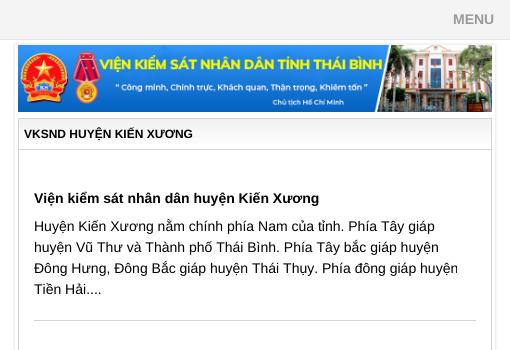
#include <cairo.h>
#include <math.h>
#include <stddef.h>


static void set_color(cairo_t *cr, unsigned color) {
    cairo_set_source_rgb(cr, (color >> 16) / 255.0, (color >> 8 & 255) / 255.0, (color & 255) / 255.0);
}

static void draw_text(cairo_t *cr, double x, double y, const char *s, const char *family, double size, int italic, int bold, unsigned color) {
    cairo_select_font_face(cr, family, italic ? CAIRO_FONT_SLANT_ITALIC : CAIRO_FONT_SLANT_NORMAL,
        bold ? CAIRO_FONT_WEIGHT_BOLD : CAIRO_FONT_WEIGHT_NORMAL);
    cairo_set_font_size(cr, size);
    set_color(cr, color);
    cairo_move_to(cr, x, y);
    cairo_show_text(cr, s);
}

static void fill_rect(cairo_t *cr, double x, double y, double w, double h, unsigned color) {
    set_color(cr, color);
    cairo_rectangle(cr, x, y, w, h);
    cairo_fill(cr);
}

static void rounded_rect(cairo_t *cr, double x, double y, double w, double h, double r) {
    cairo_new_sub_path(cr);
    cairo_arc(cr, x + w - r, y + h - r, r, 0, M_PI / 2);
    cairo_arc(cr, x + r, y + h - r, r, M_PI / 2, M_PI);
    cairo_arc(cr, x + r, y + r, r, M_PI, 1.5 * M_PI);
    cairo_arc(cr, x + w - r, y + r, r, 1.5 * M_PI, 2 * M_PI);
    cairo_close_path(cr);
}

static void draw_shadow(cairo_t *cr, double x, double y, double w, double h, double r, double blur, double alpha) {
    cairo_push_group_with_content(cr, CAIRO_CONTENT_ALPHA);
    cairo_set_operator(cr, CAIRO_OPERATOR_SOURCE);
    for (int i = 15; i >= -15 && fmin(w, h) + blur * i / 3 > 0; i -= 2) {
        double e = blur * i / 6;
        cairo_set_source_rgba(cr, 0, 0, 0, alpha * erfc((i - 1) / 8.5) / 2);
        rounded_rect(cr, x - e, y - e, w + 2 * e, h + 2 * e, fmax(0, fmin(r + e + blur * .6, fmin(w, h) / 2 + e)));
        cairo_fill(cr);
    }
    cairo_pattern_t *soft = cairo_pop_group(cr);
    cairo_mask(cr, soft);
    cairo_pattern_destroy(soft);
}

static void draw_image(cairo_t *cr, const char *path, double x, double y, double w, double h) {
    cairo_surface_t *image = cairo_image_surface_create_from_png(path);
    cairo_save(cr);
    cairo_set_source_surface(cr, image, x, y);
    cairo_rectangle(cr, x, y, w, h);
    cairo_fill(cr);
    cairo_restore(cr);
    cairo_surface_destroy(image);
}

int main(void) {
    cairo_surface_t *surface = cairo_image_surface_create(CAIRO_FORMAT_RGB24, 510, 350);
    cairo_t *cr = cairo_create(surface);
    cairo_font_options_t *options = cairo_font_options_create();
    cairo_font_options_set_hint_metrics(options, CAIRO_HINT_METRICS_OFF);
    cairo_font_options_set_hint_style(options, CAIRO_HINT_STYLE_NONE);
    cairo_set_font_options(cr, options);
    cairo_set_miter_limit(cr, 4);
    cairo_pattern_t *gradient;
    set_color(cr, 0xFFFFFF);
    cairo_paint(cr);
    fill_rect(cr, 0, 0, 510, 39, 0xF4F4F4);
    fill_rect(cr, 0, 39, 510, 1, 0xE6E6E6);
    draw_text(cr, 453, 24, "MENU", "Liberation Sans", 14, 0, 1, 0x999999);
    cairo_save(cr);
    cairo_set_fill_rule(cr, CAIRO_FILL_RULE_EVEN_ODD);
    cairo_new_path(cr);
    cairo_move_to(cr, 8, 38);
    cairo_line_to(cr, 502, 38);
    cairo_line_to(cr, 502, 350);
    cairo_line_to(cr, 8, 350);
    cairo_close_path(cr);
    cairo_move_to(cr, 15, 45);
    cairo_line_to(cr, 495, 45);
    cairo_line_to(cr, 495, 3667);
    cairo_line_to(cr, 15, 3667);
    cairo_close_path(cr);
    cairo_clip(cr);
    set_color(cr, 0x000000);
    draw_shadow(cr, 15, 45, 480, 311, 0, 2, 0.15);
    cairo_restore(cr);
    draw_image(cr, "assets/img1.png", 18, 45, 474, 67);
    cairo_rectangle(cr, 18.5, 118.5, 473, 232);
    set_color(cr, 0xD3D3D3);
    cairo_set_line_width(cr, 1);
    cairo_stroke(cr);
    gradient = cairo_pattern_create_linear(255, 119, 255, 149);
    cairo_pattern_add_color_stop_rgba(gradient, 0, 0.945, 0.945, 0.945, 1);
    cairo_pattern_add_color_stop_rgba(gradient, 1, 1, 1, 1, 1);
    cairo_set_source(cr, gradient);
    cairo_pattern_destroy(gradient);
    cairo_rectangle(cr, 19, 119, 472, 25);
    cairo_fill(cr);
    fill_rect(cr, 19, 149, 472, 1, 0xD3D3D3);
    draw_text(cr, 24, 138, "VKSND HUYỆN KIẾN XƯƠNG", "Liberation Sans", 12, 0, 1, 0x000000);
    fill_rect(cr, 34, 320, 442, 1, 0xD3D3D3);
    draw_text(cr, 34, 203, "Viện kiểm sát nhân dân huyện Kiến Xương", "Liberation Sans", 14, 0, 1, 0x000000);
    draw_text(cr, 34, 231, "Huyện Kiến Xương nằm chính phía Nam của tỉnh. Phía Tây giáp", "Liberation Sans", 14, 0, 0, 0x000000);
    draw_text(cr, 34, 252, "huyện Vũ Thư và Thành phố Thái Bình. Phía Tây bắc giáp huyện", "Liberation Sans", 14, 0, 0, 0x000000);
    draw_text(cr, 34, 273, "Đông Hưng, Đông Bắc giáp huyện Thái Thụy. Phía đông giáp huyện", "Liberation Sans", 14, 0, 0, 0x000000);
    draw_text(cr, 34, 294, "Tiền Hải....", "Liberation Sans", 14, 0, 0, 0x000000);
    cairo_surface_write_to_png(surface, "output.png");
    cairo_font_options_destroy(options);
    cairo_destroy(cr);
    cairo_surface_destroy(surface);
    return 0;
}
